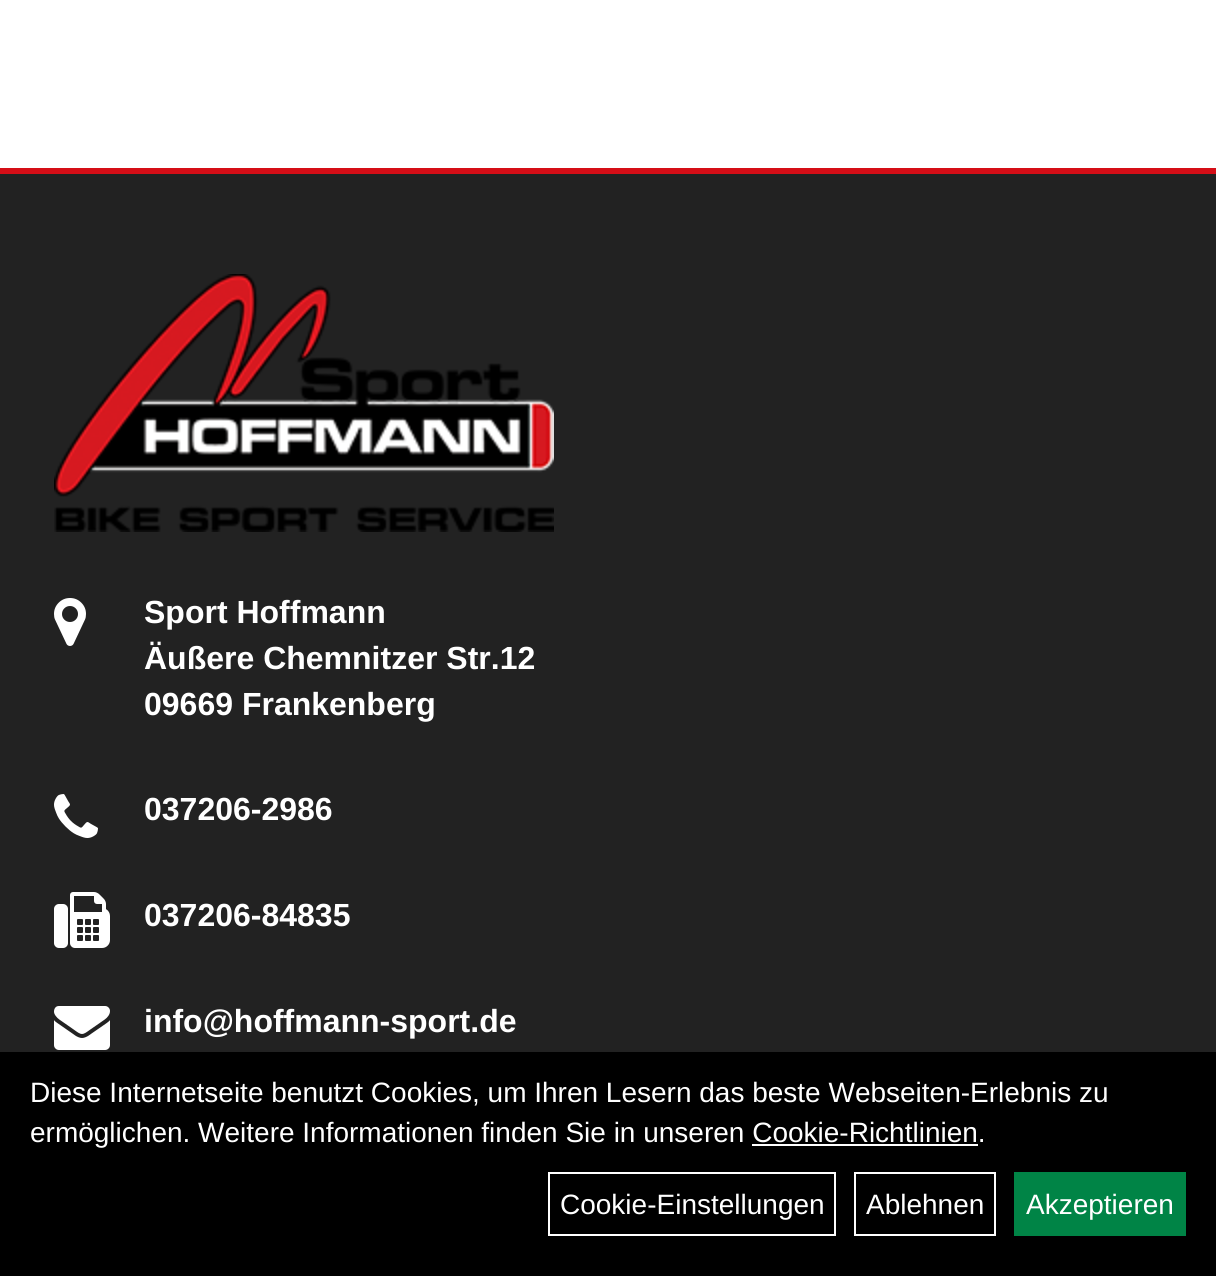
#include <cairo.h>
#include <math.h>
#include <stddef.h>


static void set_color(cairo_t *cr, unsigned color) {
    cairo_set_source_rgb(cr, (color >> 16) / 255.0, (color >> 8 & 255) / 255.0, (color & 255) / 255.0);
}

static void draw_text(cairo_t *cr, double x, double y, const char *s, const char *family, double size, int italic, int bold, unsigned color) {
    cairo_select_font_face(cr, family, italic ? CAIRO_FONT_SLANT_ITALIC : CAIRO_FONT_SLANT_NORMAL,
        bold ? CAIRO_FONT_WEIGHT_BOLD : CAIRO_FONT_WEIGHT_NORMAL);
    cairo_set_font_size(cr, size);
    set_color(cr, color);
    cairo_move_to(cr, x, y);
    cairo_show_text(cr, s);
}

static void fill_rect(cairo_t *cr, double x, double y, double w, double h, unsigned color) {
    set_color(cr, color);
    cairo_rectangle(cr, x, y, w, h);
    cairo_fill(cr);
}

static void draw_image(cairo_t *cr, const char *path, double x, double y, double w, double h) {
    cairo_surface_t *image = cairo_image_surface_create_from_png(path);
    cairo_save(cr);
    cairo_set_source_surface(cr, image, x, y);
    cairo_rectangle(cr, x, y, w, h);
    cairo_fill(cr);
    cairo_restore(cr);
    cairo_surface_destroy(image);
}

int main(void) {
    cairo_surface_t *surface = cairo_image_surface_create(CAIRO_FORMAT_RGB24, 1216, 1276);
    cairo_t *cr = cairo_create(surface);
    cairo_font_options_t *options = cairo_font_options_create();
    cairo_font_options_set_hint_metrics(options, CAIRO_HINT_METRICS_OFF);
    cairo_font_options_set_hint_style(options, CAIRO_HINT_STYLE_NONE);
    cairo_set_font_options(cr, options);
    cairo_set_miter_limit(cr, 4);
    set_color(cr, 0xFFFFFF);
    cairo_paint(cr);
    fill_rect(cr, 0, 174, 1216, 878, 0x222222);
    fill_rect(cr, 0, 168, 1216, 6, 0xD50E17);
    draw_image(cr, "assets/img1.png", 54, 274, 500, 258);
    draw_image(cr, "assets/img2.png", 54, 598, 32, 48);
    draw_text(cr, 144, 623, "Sport Hoffmann", "Liberation Sans", 32, 0, 1, 0xFFFFFF);
    draw_text(cr, 144, 669, "Äußere Chemnitzer Str.12", "Liberation Sans", 32, 0, 1, 0xFFFFFF);
    draw_text(cr, 144, 715, "09669 Frankenberg", "Liberation Sans", 32, 0, 1, 0xFFFFFF);
    draw_image(cr, "assets/img3.png", 54, 794, 44, 44);
    draw_text(cr, 144, 820, "037206-2986", "Liberation Sans", 32, 0, 1, 0xFFFFFF);
    draw_image(cr, "assets/img4.png", 54, 892, 56, 56);
    draw_text(cr, 144, 926, "037206-84835", "Liberation Sans", 32, 0, 1, 0xFFFFFF);
    draw_image(cr, "assets/img5.png", 54, 1006, 56, 44);
    draw_text(cr, 144, 1032, "info@hoffmann-sport.de", "Liberation Sans", 32, 0, 1, 0xFFFFFF);
    fill_rect(cr, 0, 1052, 1216, 224, 0x000000);
    draw_text(cr, 30, 1102, "Diese Internetseite benutzt Cookies, um Ihren Lesern das beste Webseiten-Erlebnis zu", "Liberation Sans", 28, 0, 0, 0xFFFFFF);
    draw_text(cr, 30, 1142, "ermöglichen. Weitere Informationen finden Sie in unseren Cookie-Richtlinien.", "Liberation Sans", 28, 0, 0, 0xFFFFFF);
    fill_rect(cr, 752, 1144, 226, 2, 0xFFFFFF);
    cairo_rectangle(cr, 549, 1173, 286, 62);
    cairo_stroke(cr);
    draw_text(cr, 560, 1214, "Cookie-Einstellungen", "Liberation Sans", 28, 0, 0, 0xFFFFFF);
    cairo_rectangle(cr, 855, 1173, 140, 62);
    cairo_stroke(cr);
    draw_text(cr, 866, 1214, "Ablehnen", "Liberation Sans", 28, 0, 0, 0xFFFFFF);
    fill_rect(cr, 1014, 1172, 172, 64, 0x008446);
    draw_text(cr, 1026, 1214, "Akzeptieren", "Liberation Sans", 28, 0, 0, 0xFFFFFF);
    cairo_surface_write_to_png(surface, "output.png");
    cairo_font_options_destroy(options);
    cairo_destroy(cr);
    cairo_surface_destroy(surface);
    return 0;
}
